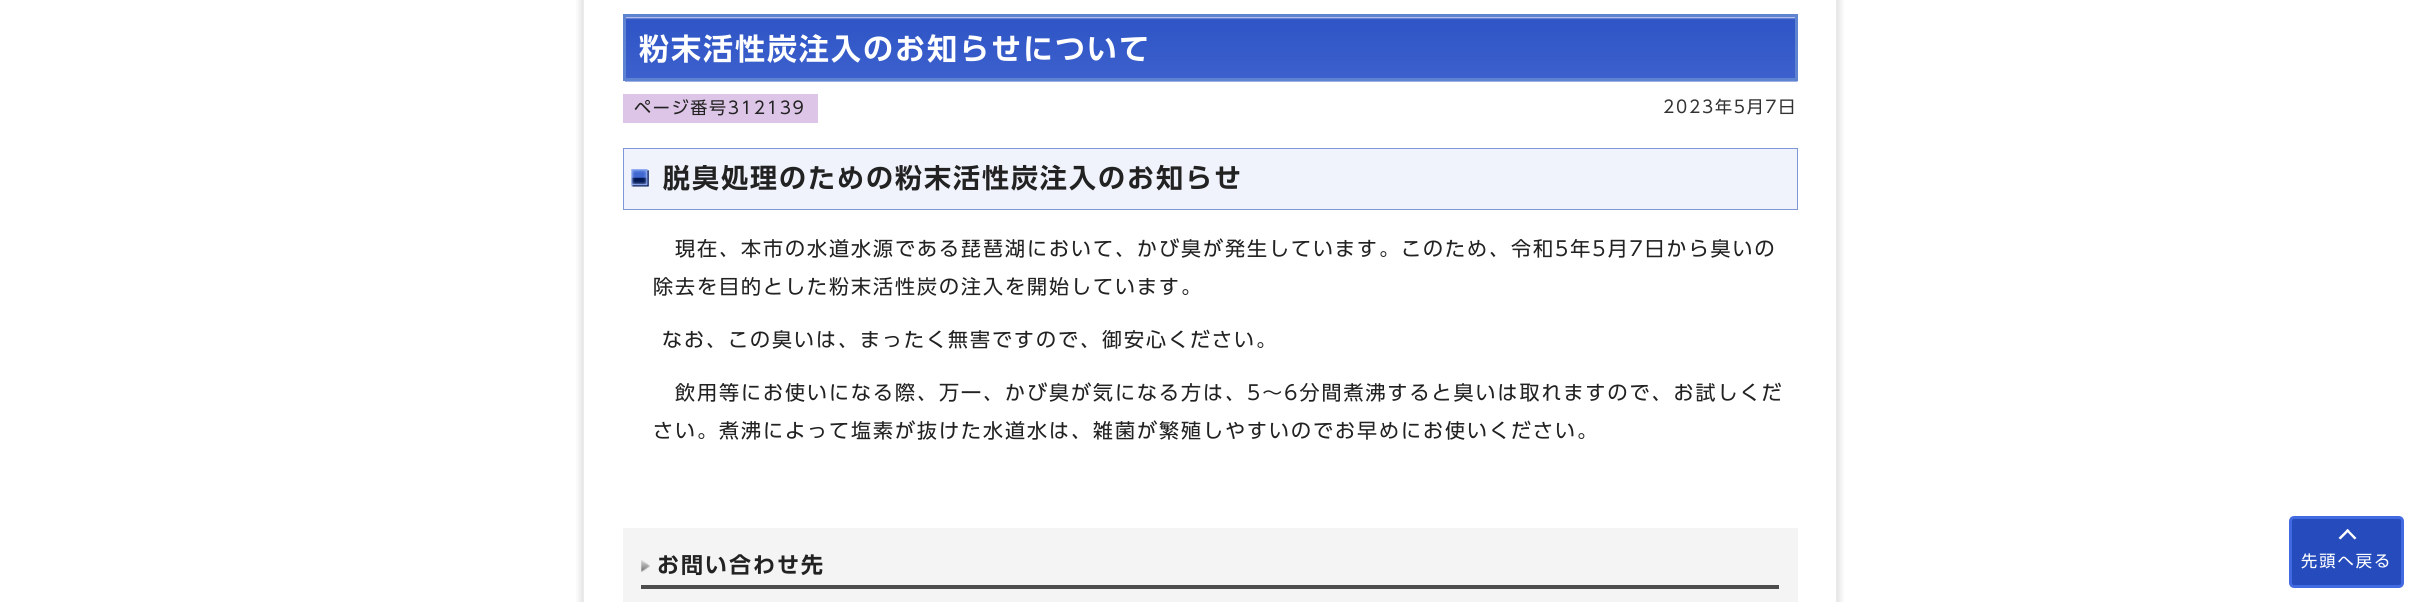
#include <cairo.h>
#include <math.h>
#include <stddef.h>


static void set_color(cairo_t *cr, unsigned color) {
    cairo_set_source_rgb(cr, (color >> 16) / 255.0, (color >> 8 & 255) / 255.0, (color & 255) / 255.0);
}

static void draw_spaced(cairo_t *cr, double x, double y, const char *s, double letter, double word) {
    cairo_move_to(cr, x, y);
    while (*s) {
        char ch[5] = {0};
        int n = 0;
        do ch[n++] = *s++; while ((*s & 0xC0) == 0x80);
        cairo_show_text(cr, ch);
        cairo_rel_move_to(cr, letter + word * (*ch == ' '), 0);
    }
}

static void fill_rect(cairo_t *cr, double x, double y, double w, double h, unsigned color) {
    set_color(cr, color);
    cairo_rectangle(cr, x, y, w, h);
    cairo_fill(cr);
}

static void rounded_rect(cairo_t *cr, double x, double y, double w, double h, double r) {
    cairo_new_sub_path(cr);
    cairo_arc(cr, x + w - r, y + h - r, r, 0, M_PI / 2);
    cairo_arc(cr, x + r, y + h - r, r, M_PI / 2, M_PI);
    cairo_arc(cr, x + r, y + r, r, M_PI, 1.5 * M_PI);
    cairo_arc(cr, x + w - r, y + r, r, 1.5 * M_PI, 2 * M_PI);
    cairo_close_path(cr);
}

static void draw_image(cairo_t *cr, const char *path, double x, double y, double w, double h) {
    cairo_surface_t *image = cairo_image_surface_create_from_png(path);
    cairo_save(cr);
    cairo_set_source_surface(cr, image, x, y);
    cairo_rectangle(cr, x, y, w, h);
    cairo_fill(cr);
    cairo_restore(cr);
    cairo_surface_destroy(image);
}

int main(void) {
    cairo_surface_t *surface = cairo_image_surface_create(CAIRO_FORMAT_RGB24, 2418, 602);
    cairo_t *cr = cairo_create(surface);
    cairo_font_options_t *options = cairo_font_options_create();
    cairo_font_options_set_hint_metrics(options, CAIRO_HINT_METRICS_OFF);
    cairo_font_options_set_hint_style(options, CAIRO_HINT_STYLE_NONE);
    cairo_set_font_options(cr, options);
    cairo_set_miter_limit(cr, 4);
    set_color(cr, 0xFFFFFF);
    cairo_paint(cr);
    draw_image(cr, "assets/img1.png", 576, 0, 1268, 602);
    draw_image(cr, "assets/img2.png", 625, 17, 1173, 65);
    cairo_rectangle(cr, 624.5, 15.5, 1172, 64);
    set_color(cr, 0x5E84D1);
    cairo_set_line_width(cr, 3);
    cairo_stroke(cr);
    cairo_select_font_face(cr, "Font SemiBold", CAIRO_FONT_SLANT_NORMAL, CAIRO_FONT_WEIGHT_NORMAL);
    cairo_set_font_size(cr, 30);
    set_color(cr, 0xFFFFFF);
    draw_spaced(cr, 639, 60, "粉末活性炭注入のお知らせについて", 2, 0);
    fill_rect(cr, 623, 94, 195, 29, 0xDDC5E7);
    cairo_select_font_face(cr, "Font", CAIRO_FONT_SLANT_NORMAL, CAIRO_FONT_WEIGHT_NORMAL);
    cairo_set_font_size(cr, 17);
    set_color(cr, 0x222222);
    draw_spaced(cr, 634, 114, "ページ番号312139", 1.75, 0);
    set_color(cr, 0x333333);
    draw_spaced(cr, 1663, 113, "2023年5月7日", 1.75, 0);
    fill_rect(cr, 624, 149, 1173, 60, 0xF0F3FB);
    draw_image(cr, "assets/img3.png", 631, 169, 18, 18);
    cairo_rectangle(cr, 623.5, 148.5, 1174, 61);
    set_color(cr, 0x7E97D6);
    cairo_set_line_width(cr, 1);
    cairo_stroke(cr);
    cairo_select_font_face(cr, "Font SemiBold", CAIRO_FONT_SLANT_NORMAL, CAIRO_FONT_WEIGHT_NORMAL);
    cairo_set_font_size(cr, 27);
    set_color(cr, 0x222222);
    draw_spaced(cr, 663, 188, "脱臭処理のための粉末活性炭注入のお知らせ", 2, 0);
    cairo_select_font_face(cr, "Font", CAIRO_FONT_SLANT_NORMAL, CAIRO_FONT_WEIGHT_NORMAL);
    cairo_set_font_size(cr, 20);
    draw_spaced(cr, 675, 256, "現在、本市の水道水源である琵琶湖において、かび臭が発生しています。このため、令和5年5月7日から臭いの", 2, 0);
    draw_spaced(cr, 653, 294, "除去を目的とした粉末活性炭の注入を開始しています。", 2, 0);
    draw_spaced(cr, 662, 347, "なお、この臭いは、まったく無害ですので、御安心ください。", 2, 0);
    draw_spaced(cr, 675, 400, "飲用等にお使いになる際、万一、かび臭が気になる方は、5～6分間煮沸すると臭いは取れますので、お試しくだ", 2, 0);
    draw_spaced(cr, 653, 438, "さい。煮沸によって塩素が抜けた水道水は、雑菌が繁殖しやすいのでお早めにお使いください。", 2, 0);
    fill_rect(cr, 623, 528, 1175, 74, 0xF4F4F4);
    draw_image(cr, "assets/img4.png", 641, 560, 9, 12);
    fill_rect(cr, 641, 585, 1138, 4, 0x4D4D4D);
    cairo_select_font_face(cr, "Font SemiBold", CAIRO_FONT_SLANT_NORMAL, CAIRO_FONT_WEIGHT_NORMAL);
    cairo_set_font_size(cr, 22);
    set_color(cr, 0x222222);
    draw_spaced(cr, 657, 573, "お問い合わせ先", 2, 0);
    set_color(cr, 0x254BBD);
    rounded_rect(cr, 2290.5, 517.5, 112, 69, 3.5);
    cairo_fill_preserve(cr);
    set_color(cr, 0x4169E1);
    cairo_set_line_width(cr, 3);
    cairo_stroke(cr);
    set_color(cr, 0xFFFFFF);
    cairo_new_path(cr);
    cairo_move_to(cr, 2340.5, 539.5);
    cairo_line_to(cr, 2338.5, 538);
    cairo_line_to(cr, 2347.5, 529);
    cairo_line_to(cr, 2349.5, 530.5);
    cairo_close_path(cr);
    cairo_fill(cr);
    cairo_new_path(cr);
    cairo_move_to(cr, 2354.5, 539.5);
    cairo_line_to(cr, 2346, 530.5);
    cairo_line_to(cr, 2347.5, 529);
    cairo_line_to(cr, 2356.5, 538);
    cairo_close_path(cr);
    cairo_fill(cr);
    cairo_select_font_face(cr, "Font", CAIRO_FONT_SLANT_NORMAL, CAIRO_FONT_WEIGHT_NORMAL);
    cairo_set_font_size(cr, 16.25);
    draw_spaced(cr, 2301, 567, "先頭へ戻る", 2, 0);
    cairo_surface_write_to_png(surface, "output.png");
    cairo_font_options_destroy(options);
    cairo_destroy(cr);
    cairo_surface_destroy(surface);
    return 0;
}
